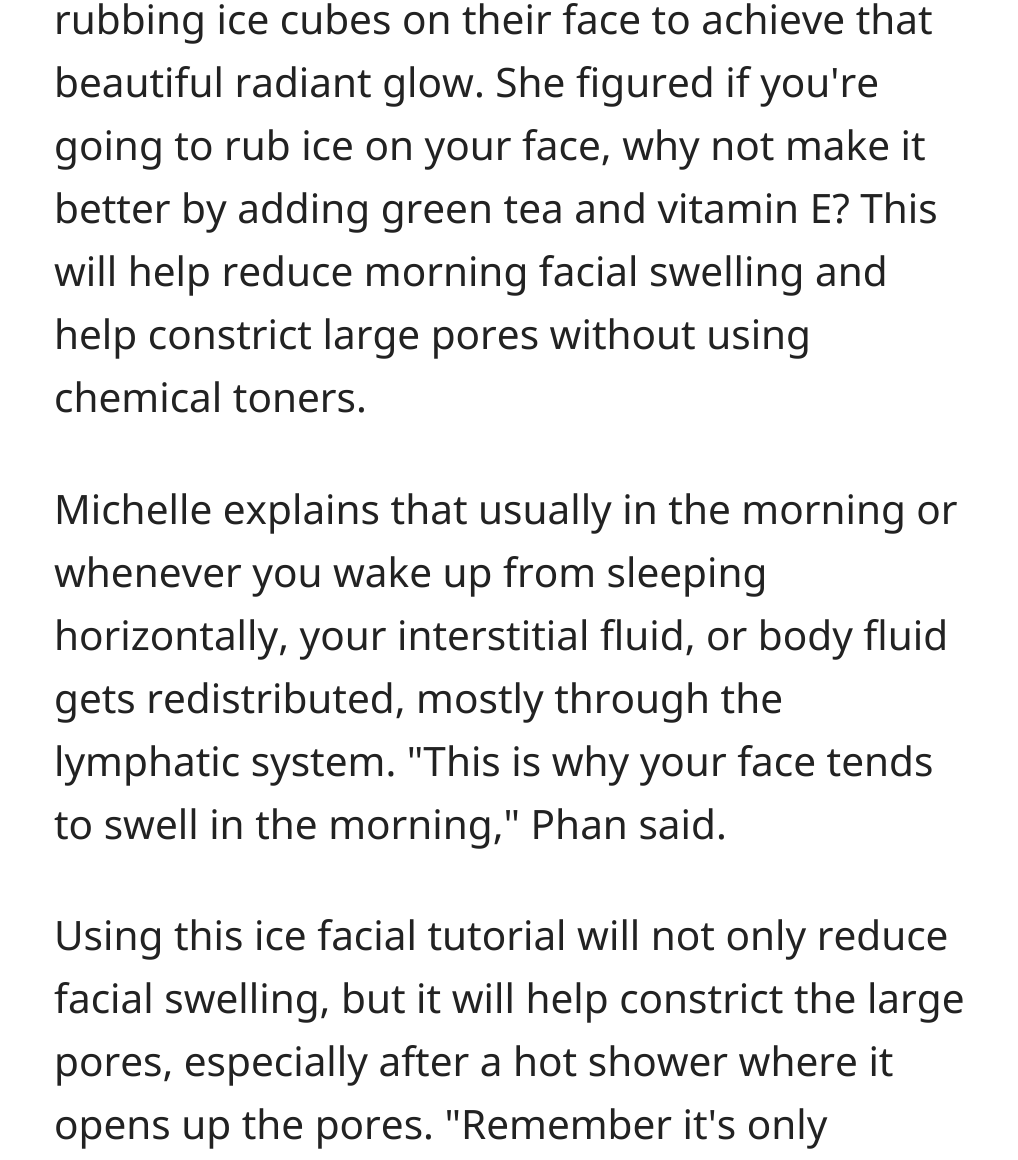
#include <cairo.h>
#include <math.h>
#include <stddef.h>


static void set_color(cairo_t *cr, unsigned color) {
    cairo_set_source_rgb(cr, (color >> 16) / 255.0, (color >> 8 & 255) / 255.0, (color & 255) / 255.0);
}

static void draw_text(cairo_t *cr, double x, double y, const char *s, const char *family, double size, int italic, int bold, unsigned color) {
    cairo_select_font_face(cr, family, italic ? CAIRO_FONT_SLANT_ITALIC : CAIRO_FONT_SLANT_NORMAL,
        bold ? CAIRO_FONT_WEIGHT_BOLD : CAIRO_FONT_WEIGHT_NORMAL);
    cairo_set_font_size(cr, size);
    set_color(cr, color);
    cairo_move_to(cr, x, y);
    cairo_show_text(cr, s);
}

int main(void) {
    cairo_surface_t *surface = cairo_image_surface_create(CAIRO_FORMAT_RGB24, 1018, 1160);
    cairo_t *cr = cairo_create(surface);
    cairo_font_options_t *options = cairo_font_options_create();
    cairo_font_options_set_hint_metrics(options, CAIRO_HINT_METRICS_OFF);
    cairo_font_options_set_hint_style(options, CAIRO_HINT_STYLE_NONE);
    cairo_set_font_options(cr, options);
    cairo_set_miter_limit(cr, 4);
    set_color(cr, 0xFFFFFF);
    cairo_paint(cr);
    draw_text(cr, 54, 34, "rubbing ice cubes on their face to achieve that", "Noto Sans", 40.5, 0, 0, 0x222222);
    draw_text(cr, 54, 97, "beautiful radiant glow. She figured if you're", "Noto Sans", 40.5, 0, 0, 0x222222);
    draw_text(cr, 54, 160, "going to rub ice on your face, why not make it", "Noto Sans", 40.5, 0, 0, 0x222222);
    draw_text(cr, 54, 223, "better by adding green tea and vitamin E? This", "Noto Sans", 40.5, 0, 0, 0x222222);
    draw_text(cr, 54, 286, "will help reduce morning facial swelling and", "Noto Sans", 40.5, 0, 0, 0x222222);
    draw_text(cr, 54, 349, "help constrict large pores without using", "Noto Sans", 40.5, 0, 0, 0x222222);
    draw_text(cr, 54, 412, "chemical toners.", "Noto Sans", 40.5, 0, 0, 0x222222);
    draw_text(cr, 54, 524, "Michelle explains that usually in the morning or", "Noto Sans", 40.5, 0, 0, 0x222222);
    draw_text(cr, 54, 587, "whenever you wake up from sleeping", "Noto Sans", 40.5, 0, 0, 0x222222);
    draw_text(cr, 54, 650, "horizontally, your interstitial fluid, or body fluid", "Noto Sans", 40.5, 0, 0, 0x222222);
    draw_text(cr, 54, 713, "gets redistributed, mostly through the", "Noto Sans", 40.5, 0, 0, 0x222222);
    draw_text(cr, 54, 776, "lymphatic system. \"This is why your face tends", "Noto Sans", 40.5, 0, 0, 0x222222);
    draw_text(cr, 54, 839, "to swell in the morning,\" Phan said.", "Noto Sans", 40.5, 0, 0, 0x222222);
    draw_text(cr, 54, 950, "Using this ice facial tutorial will not only reduce", "Noto Sans", 40.5, 0, 0, 0x222222);
    draw_text(cr, 54, 1013, "facial swelling, but it will help constrict the large", "Noto Sans", 40.5, 0, 0, 0x222222);
    draw_text(cr, 54, 1076, "pores, especially after a hot shower where it", "Noto Sans", 40.5, 0, 0, 0x222222);
    draw_text(cr, 54, 1139, "opens up the pores. \"Remember it's only", "Noto Sans", 40.5, 0, 0, 0x222222);
    cairo_surface_write_to_png(surface, "output.png");
    cairo_font_options_destroy(options);
    cairo_destroy(cr);
    cairo_surface_destroy(surface);
    return 0;
}
